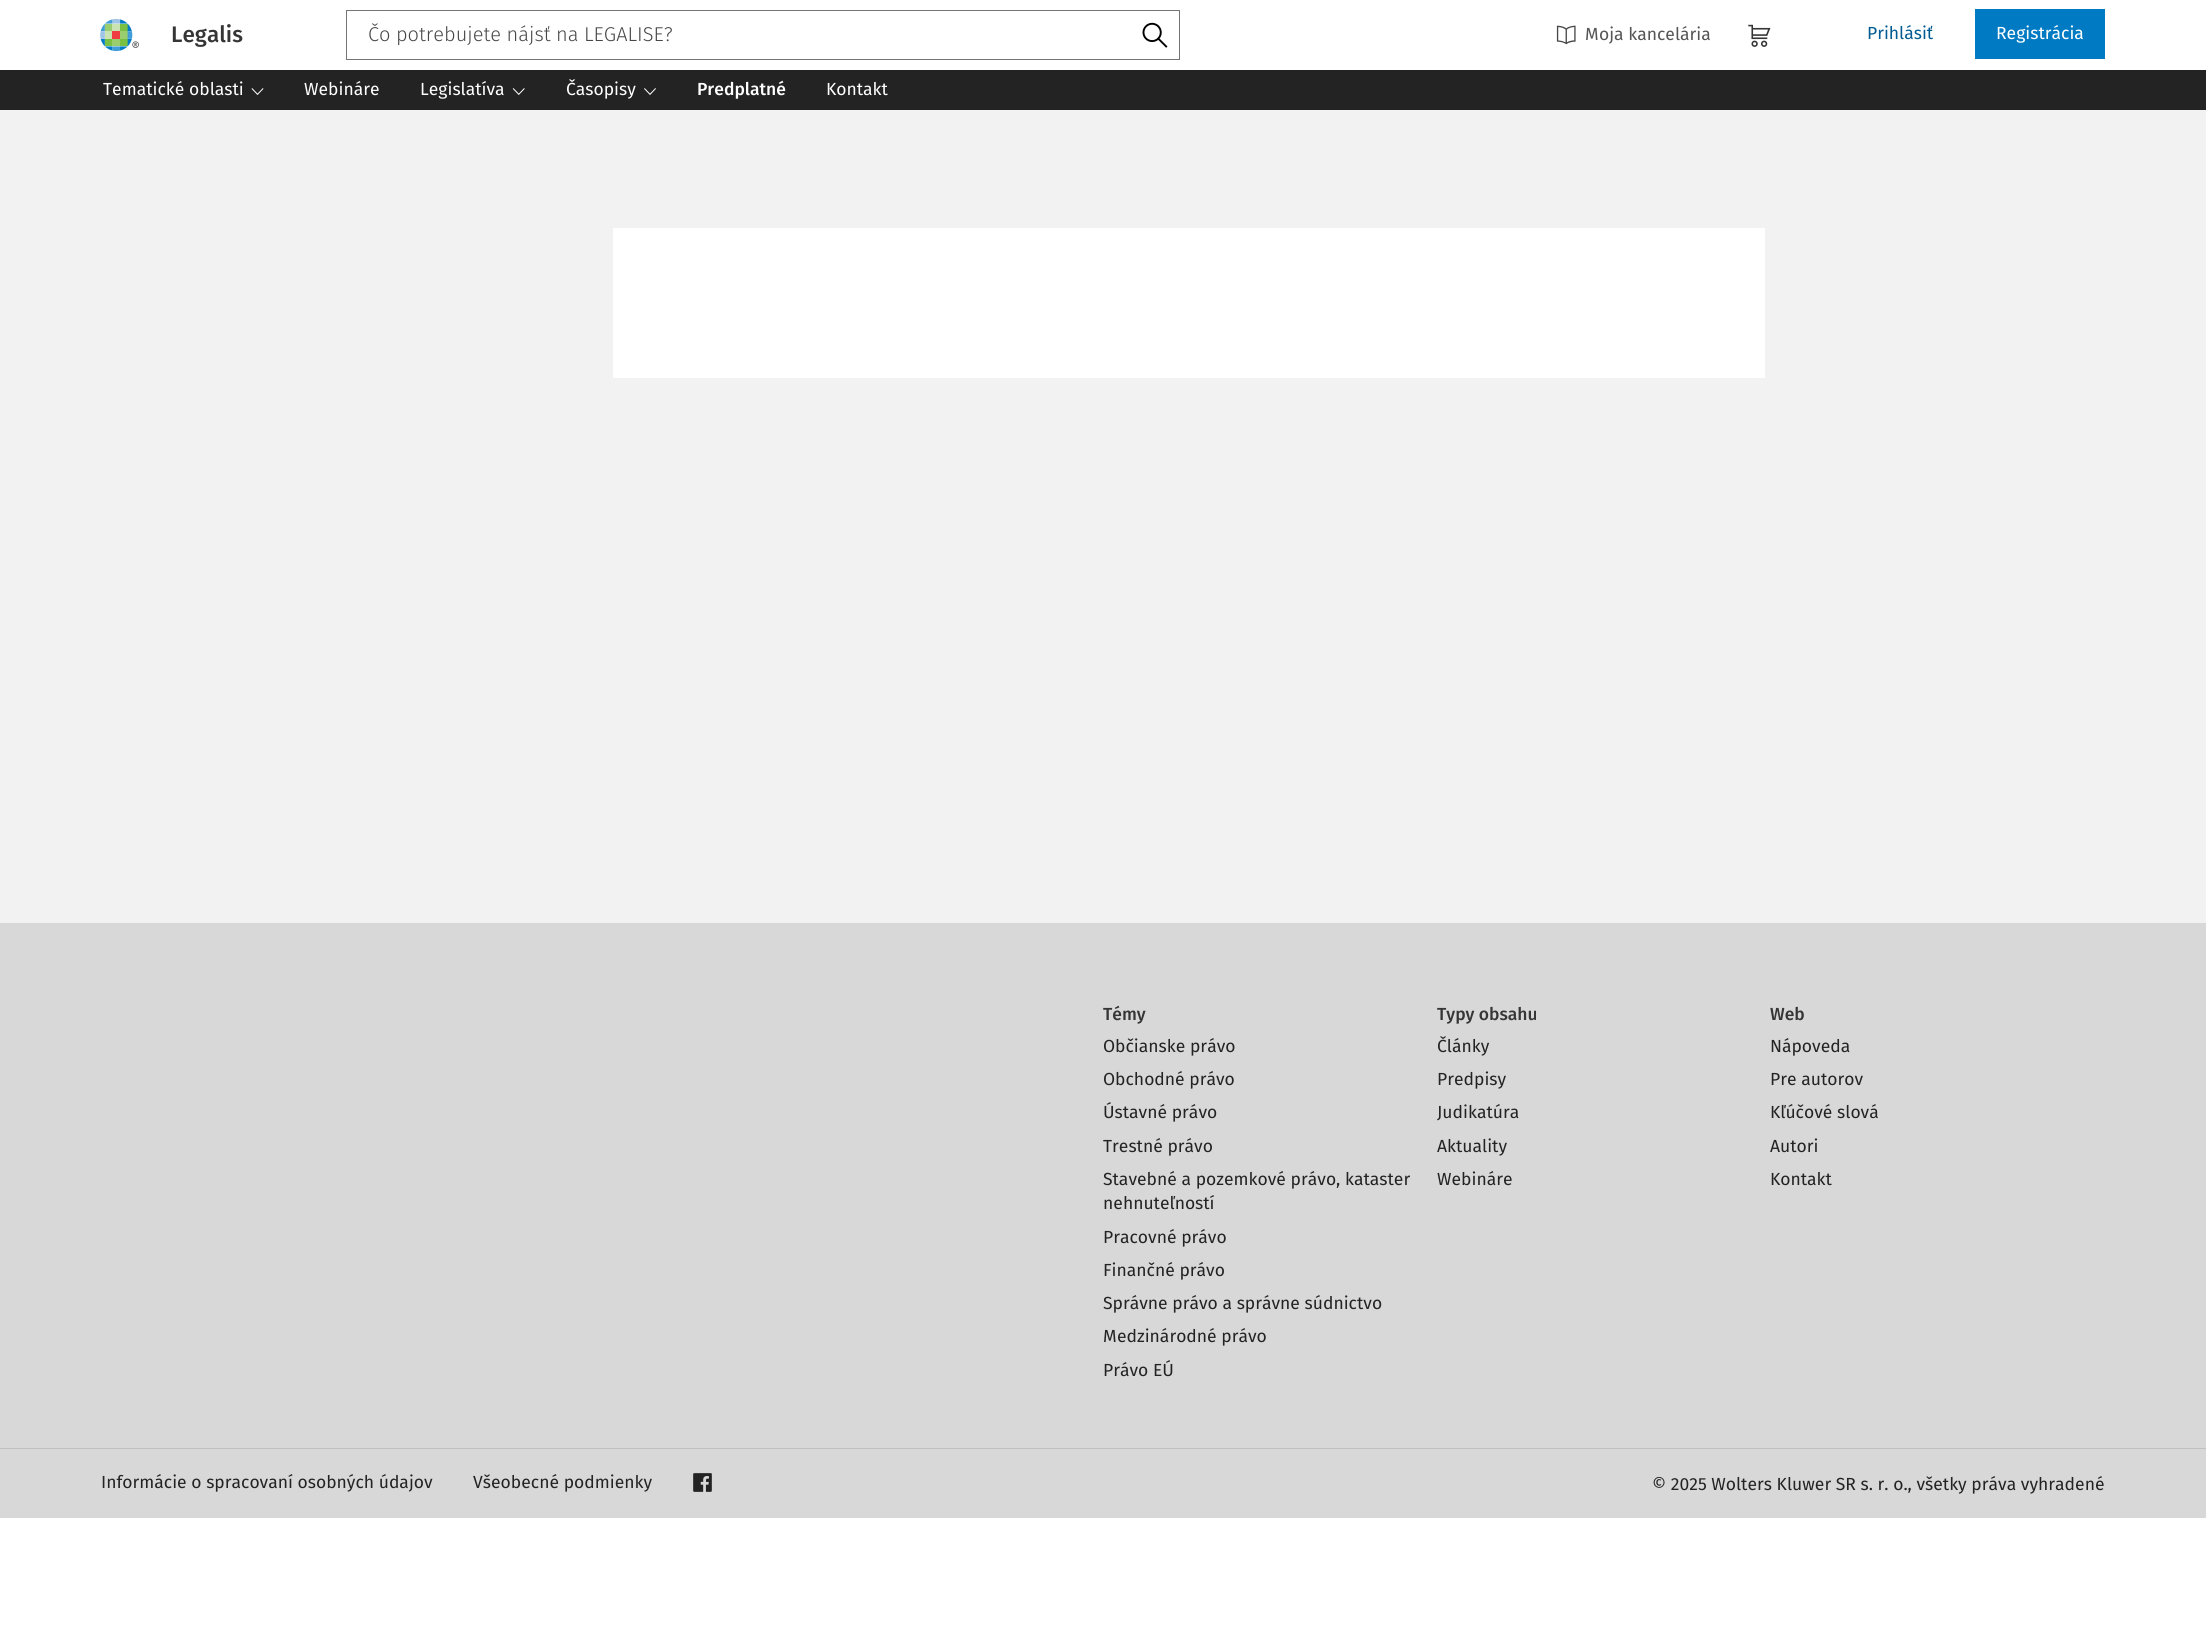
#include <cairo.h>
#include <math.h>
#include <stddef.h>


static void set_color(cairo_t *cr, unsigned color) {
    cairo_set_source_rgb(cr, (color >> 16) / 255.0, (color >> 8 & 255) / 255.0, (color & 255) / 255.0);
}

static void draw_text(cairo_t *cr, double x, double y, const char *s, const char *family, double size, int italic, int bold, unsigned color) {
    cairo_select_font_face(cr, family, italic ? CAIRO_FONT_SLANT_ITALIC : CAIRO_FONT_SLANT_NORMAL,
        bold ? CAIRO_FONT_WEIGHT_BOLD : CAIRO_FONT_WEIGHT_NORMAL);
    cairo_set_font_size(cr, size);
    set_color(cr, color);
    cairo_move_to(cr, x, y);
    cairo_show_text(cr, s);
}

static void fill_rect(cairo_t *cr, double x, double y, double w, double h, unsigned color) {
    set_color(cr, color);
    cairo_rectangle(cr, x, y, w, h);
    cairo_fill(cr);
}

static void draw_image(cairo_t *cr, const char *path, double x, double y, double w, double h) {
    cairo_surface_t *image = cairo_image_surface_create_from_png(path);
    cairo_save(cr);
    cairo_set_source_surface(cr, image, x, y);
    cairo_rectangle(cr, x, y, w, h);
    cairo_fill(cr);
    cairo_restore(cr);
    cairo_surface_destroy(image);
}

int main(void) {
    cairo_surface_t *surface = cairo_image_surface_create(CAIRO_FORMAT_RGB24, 2206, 1625);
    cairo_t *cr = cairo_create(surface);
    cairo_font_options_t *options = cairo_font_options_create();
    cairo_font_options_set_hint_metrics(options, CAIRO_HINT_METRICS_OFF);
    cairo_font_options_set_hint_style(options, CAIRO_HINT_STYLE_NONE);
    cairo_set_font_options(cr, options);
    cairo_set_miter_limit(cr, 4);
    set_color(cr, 0xFFFFFF);
    cairo_paint(cr);
    draw_image(cr, "assets/img1.png", 100, 18, 39, 34);
    draw_text(cr, 171, 42, "Legalis", "Fira Sans Medium", 22.5, 0, 0, 0x353535);
    cairo_rectangle(cr, 346.5, 10.5, 833, 49);
    set_color(cr, 0x757575);
    cairo_set_line_width(cr, 1);
    cairo_stroke(cr);
    draw_text(cr, 368, 41, "Čo potrebujete nájsť na LEGALISE?", "Fira Sans Light", 20, 0, 0, 0x474747);
    draw_image(cr, "assets/img2.png", 1142, 22, 26, 26);
    draw_image(cr, "assets/img3.png", 1556, 25, 20, 20);
    draw_text(cr, 1585, 40, "Moja kancelária", "Fira Sans", 17.5, 0, 0, 0x555555);
    draw_image(cr, "assets/img4.png", 1748, 24, 23, 23);
    draw_text(cr, 1867, 39, "Prihlásiť", "Fira Sans", 17.5, 0, 0, 0x005B92);
    fill_rect(cr, 1975, 9, 130, 50, 0x007AC3);
    draw_text(cr, 1996, 39, "Registrácia", "Fira Sans", 17.5, 0, 0, 0xFFFFFF);
    fill_rect(cr, 0, 70, 2206, 40, 0x232323);
    draw_text(cr, 103, 95, "Tematické oblasti", "Fira Sans", 17.5, 0, 0, 0xFFFFFF);
    draw_image(cr, "assets/img5.png", 251, 88, 13, 7);
    draw_text(cr, 304, 95, "Webináre", "Fira Sans", 17.5, 0, 0, 0xFFFFFF);
    draw_text(cr, 420, 95, "Legislatíva", "Fira Sans", 17.5, 0, 0, 0xFFFFFF);
    draw_image(cr, "assets/img6.png", 512, 88, 13, 7);
    draw_text(cr, 566, 95, "Časopisy", "Fira Sans", 17.5, 0, 0, 0xFFFFFF);
    draw_image(cr, "assets/img7.png", 644, 88, 12, 7);
    draw_text(cr, 697, 95, "Predplatné", "Fira Sans Medium", 17.5, 0, 0, 0xFFFFFF);
    draw_text(cr, 826, 95, "Kontakt", "Fira Sans", 17.5, 0, 0, 0xFFFFFF);
    fill_rect(cr, 0, 110, 2206, 813, 0xF2F2F2);
    fill_rect(cr, 613, 228, 1152, 150, 0xFFFFFF);
    fill_rect(cr, 0, 923, 2206, 525, 0xD8D8D8);
    draw_text(cr, 1103, 1020, "Témy", "Fira Sans Medium", 17.5, 0, 0, 0x353535);
    draw_text(cr, 1103, 1052, "Občianske právo", "Fira Sans", 17.5, 0, 0, 0x232323);
    draw_text(cr, 1103, 1085, "Obchodné právo", "Fira Sans", 17.5, 0, 0, 0x232323);
    draw_text(cr, 1103, 1118, "Ústavné právo", "Fira Sans", 17.5, 0, 0, 0x232323);
    draw_text(cr, 1103, 1152, "Trestné právo", "Fira Sans", 17.5, 0, 0, 0x232323);
    draw_text(cr, 1103, 1185, "Stavebné a pozemkové právo, kataster", "Fira Sans", 17.5, 0, 0, 0x232323);
    draw_text(cr, 1103, 1209, "nehnuteľností", "Fira Sans", 17.5, 0, 0, 0x232323);
    draw_text(cr, 1103, 1243, "Pracovné právo", "Fira Sans", 17.5, 0, 0, 0x232323);
    draw_text(cr, 1103, 1276, "Finančné právo", "Fira Sans", 17.5, 0, 0, 0x232323);
    draw_text(cr, 1103, 1309, "Správne právo a správne súdnictvo", "Fira Sans", 17.5, 0, 0, 0x232323);
    draw_text(cr, 1103, 1342, "Medzinárodné právo", "Fira Sans", 17.5, 0, 0, 0x232323);
    draw_text(cr, 1103, 1376, "Právo EÚ", "Fira Sans", 17.5, 0, 0, 0x232323);
    draw_text(cr, 1437, 1020, "Typy obsahu", "Fira Sans Medium", 17.5, 0, 0, 0x353535);
    draw_text(cr, 1437, 1052, "Články", "Fira Sans", 17.5, 0, 0, 0x232323);
    draw_text(cr, 1437, 1085, "Predpisy", "Fira Sans", 17.5, 0, 0, 0x232323);
    draw_text(cr, 1437, 1118, "Judikatúra", "Fira Sans", 17.5, 0, 0, 0x232323);
    draw_text(cr, 1437, 1152, "Aktuality", "Fira Sans", 17.5, 0, 0, 0x232323);
    draw_text(cr, 1437, 1185, "Webináre", "Fira Sans", 17.5, 0, 0, 0x232323);
    draw_text(cr, 1770, 1020, "Web", "Fira Sans Medium", 17.5, 0, 0, 0x353535);
    draw_text(cr, 1770, 1052, "Nápoveda", "Fira Sans", 17.5, 0, 0, 0x232323);
    draw_text(cr, 1770, 1085, "Pre autorov", "Fira Sans", 17.5, 0, 0, 0x232323);
    draw_text(cr, 1770, 1118, "Kľúčové slová", "Fira Sans", 17.5, 0, 0, 0x232323);
    draw_text(cr, 1770, 1152, "Autori", "Fira Sans", 17.5, 0, 0, 0x232323);
    draw_text(cr, 1770, 1185, "Kontakt", "Fira Sans", 17.5, 0, 0, 0x232323);
    fill_rect(cr, 0, 1449, 2206, 69, 0xD8D8D8);
    fill_rect(cr, 0, 1448, 2206, 1, 0xC1C1C1);
    draw_text(cr, 101, 1488, "Informácie o spracovaní osobných údajov", "Fira Sans", 17.5, 0, 0, 0x232323);
    draw_text(cr, 473, 1488, "Všeobecné podmienky", "Fira Sans", 17.5, 0, 0, 0x232323);
    draw_image(cr, "assets/img8.png", 693, 1473, 19, 19);
    draw_text(cr, 1652, 1490, "© 2025 Wolters Kluwer SR s. r. o., všetky práva vyhradené", "Fira Sans", 17.5, 0, 0, 0x232323);
    cairo_surface_write_to_png(surface, "output.png");
    cairo_font_options_destroy(options);
    cairo_destroy(cr);
    cairo_surface_destroy(surface);
    return 0;
}
